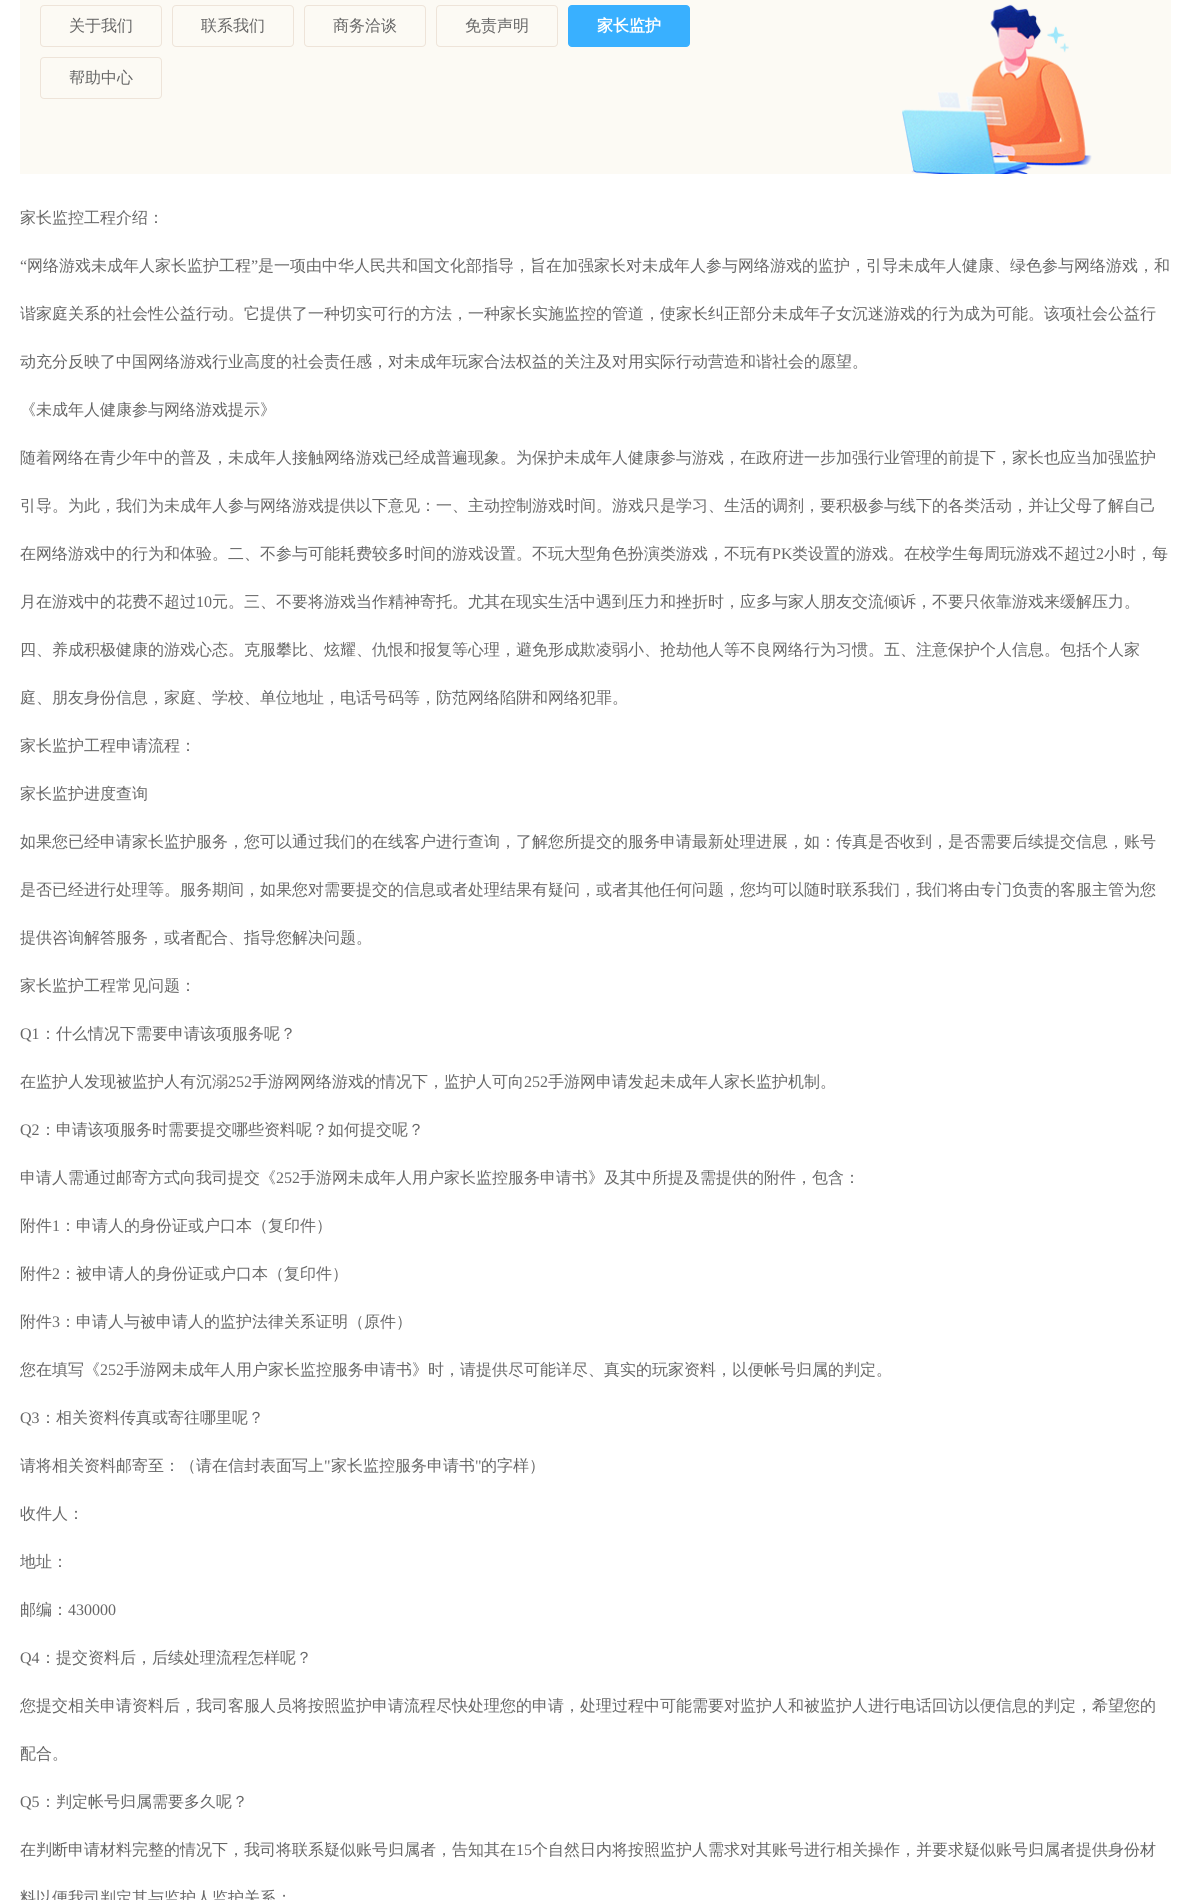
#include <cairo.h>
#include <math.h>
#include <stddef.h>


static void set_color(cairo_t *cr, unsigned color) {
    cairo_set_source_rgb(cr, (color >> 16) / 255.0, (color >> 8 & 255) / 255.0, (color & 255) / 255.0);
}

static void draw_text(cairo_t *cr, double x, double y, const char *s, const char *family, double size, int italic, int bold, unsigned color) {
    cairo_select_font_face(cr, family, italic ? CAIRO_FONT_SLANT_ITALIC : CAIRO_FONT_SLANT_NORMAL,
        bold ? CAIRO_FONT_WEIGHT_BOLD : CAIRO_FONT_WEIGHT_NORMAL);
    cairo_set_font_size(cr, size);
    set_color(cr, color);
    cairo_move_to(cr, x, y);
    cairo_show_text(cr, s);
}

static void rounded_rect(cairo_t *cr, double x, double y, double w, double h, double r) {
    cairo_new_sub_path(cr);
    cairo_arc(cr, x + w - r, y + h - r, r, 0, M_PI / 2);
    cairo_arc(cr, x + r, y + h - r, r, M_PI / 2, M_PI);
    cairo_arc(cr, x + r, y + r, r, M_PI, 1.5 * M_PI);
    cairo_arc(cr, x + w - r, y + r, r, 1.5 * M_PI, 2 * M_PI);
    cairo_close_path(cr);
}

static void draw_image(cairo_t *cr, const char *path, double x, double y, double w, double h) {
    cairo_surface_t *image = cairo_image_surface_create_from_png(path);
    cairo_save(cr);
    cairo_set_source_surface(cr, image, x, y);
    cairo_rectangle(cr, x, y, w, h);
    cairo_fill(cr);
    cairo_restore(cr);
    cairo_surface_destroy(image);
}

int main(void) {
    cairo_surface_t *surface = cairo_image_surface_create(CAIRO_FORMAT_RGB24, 1191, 1900);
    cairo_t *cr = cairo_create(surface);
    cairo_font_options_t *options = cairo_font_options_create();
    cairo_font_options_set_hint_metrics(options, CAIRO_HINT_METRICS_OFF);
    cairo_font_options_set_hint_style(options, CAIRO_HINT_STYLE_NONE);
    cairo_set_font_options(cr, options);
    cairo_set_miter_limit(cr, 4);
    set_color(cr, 0xFFFFFF);
    cairo_paint(cr);
    draw_image(cr, "assets/img1.png", 20, 0, 1151, 174);
    rounded_rect(cr, 40.5, 5.5, 121, 41, 3.5);
    set_color(cr, 0xEEE4D9);
    cairo_set_line_width(cr, 1);
    cairo_stroke(cr);
    draw_text(cr, 69, 31, "关于我们", "WenQuanYi Zen Hei Medium", 16, 0, 0, 0x666666);
    rounded_rect(cr, 172.5, 5.5, 121, 41, 3.5);
    set_color(cr, 0xEEE4D9);
    cairo_stroke(cr);
    draw_text(cr, 201, 31, "联系我们", "WenQuanYi Zen Hei Medium", 16, 0, 0, 0x666666);
    rounded_rect(cr, 304.5, 5.5, 121, 41, 3.5);
    set_color(cr, 0xEEE4D9);
    cairo_stroke(cr);
    draw_text(cr, 333, 31, "商务洽谈", "WenQuanYi Zen Hei Medium", 16, 0, 0, 0x666666);
    rounded_rect(cr, 436.5, 5.5, 121, 41, 3.5);
    set_color(cr, 0xEEE4D9);
    cairo_stroke(cr);
    draw_text(cr, 465, 31, "免责声明", "WenQuanYi Zen Hei Medium", 16, 0, 0, 0x666666);
    set_color(cr, 0x39B0FF);
    rounded_rect(cr, 568.5, 5.5, 121, 41, 3.5);
    cairo_fill_preserve(cr);
    cairo_stroke(cr);
    draw_text(cr, 597, 31, "家长监护", "WenQuanYi Zen Hei", 16, 0, 1, 0xFFFFFF);
    rounded_rect(cr, 40.5, 57.5, 121, 41, 3.5);
    set_color(cr, 0xEEE4D9);
    cairo_stroke(cr);
    draw_text(cr, 69, 83, "帮助中心", "WenQuanYi Zen Hei Medium", 16, 0, 0, 0x666666);
    draw_text(cr, 20, 223, "家长监控工程介绍：", "WenQuanYi Zen Hei Medium", 16, 0, 0, 0x666666);
    draw_text(cr, 20, 271, "“", "Liberation Serif", 16, 0, 0, 0x666666);
    draw_text(cr, 27, 271, "网络游戏未成年人家长监护工程", "WenQuanYi Zen Hei Medium", 16, 0, 0, 0x666666);
    draw_text(cr, 251, 271, "”", "Liberation Serif", 16, 0, 0, 0x666666);
    draw_text(cr, 258, 271, "是一项由中华人民共和国文化部指导，旨在加强家长对未成年人参与网络游戏的监护，引导未成年人健康、绿色参与网络游戏，和", "WenQuanYi Zen Hei Medium", 16, 0, 0, 0x666666);
    draw_text(cr, 20, 319, "谐家庭关系的社会性公益行动。它提供了一种切实可行的方法，一种家长实施监控的管道，使家长纠正部分未成年子女沉迷游戏的行为成为可能。该项社会公益行", "WenQuanYi Zen Hei Medium", 16, 0, 0, 0x666666);
    draw_text(cr, 20, 367, "动充分反映了中国网络游戏行业高度的社会责任感，对未成年玩家合法权益的关注及对用实际行动营造和谐社会的愿望。", "WenQuanYi Zen Hei Medium", 16, 0, 0, 0x666666);
    draw_text(cr, 20, 415, "《未成年人健康参与网络游戏提示》", "WenQuanYi Zen Hei Medium", 16, 0, 0, 0x666666);
    draw_text(cr, 20, 463, "随着网络在青少年中的普及，未成年人接触网络游戏已经成普遍现象。为保护未成年人健康参与游戏，在政府进一步加强行业管理的前提下，家长也应当加强监护", "WenQuanYi Zen Hei Medium", 16, 0, 0, 0x666666);
    draw_text(cr, 20, 511, "引导。为此，我们为未成年人参与网络游戏提供以下意见：一、主动控制游戏时间。游戏只是学习、生活的调剂，要积极参与线下的各类活动，并让父母了解自己", "WenQuanYi Zen Hei Medium", 16, 0, 0, 0x666666);
    draw_text(cr, 20, 559, "在网络游戏中的行为和体验。二、不参与可能耗费较多时间的游戏设置。不玩大型角色扮演类游戏，不玩有", "WenQuanYi Zen Hei Medium", 16, 0, 0, 0x666666);
    draw_text(cr, 772, 559, "PK", "Liberation Serif", 16, 0, 0, 0x666666);
    draw_text(cr, 792, 559, "类设置的游戏。在校学生每周玩游戏不超过", "WenQuanYi Zen Hei Medium", 16, 0, 0, 0x666666);
    draw_text(cr, 1096, 559, "2", "Liberation Serif", 16, 0, 0, 0x666666);
    draw_text(cr, 1104, 559, "小时，每", "WenQuanYi Zen Hei Medium", 16, 0, 0, 0x666666);
    draw_text(cr, 20, 607, "月在游戏中的花费不超过", "WenQuanYi Zen Hei Medium", 16, 0, 0, 0x666666);
    draw_text(cr, 196, 607, "10", "Liberation Serif", 16, 0, 0, 0x666666);
    draw_text(cr, 212, 607, "元。三、不要将游戏当作精神寄托。尤其在现实生活中遇到压力和挫折时，应多与家人朋友交流倾诉，不要只依靠游戏来缓解压力。", "WenQuanYi Zen Hei Medium", 16, 0, 0, 0x666666);
    draw_text(cr, 20, 655, "四、养成积极健康的游戏心态。克服攀比、炫耀、仇恨和报复等心理，避免形成欺凌弱小、抢劫他人等不良网络行为习惯。五、注意保护个人信息。包括个人家", "WenQuanYi Zen Hei Medium", 16, 0, 0, 0x666666);
    draw_text(cr, 20, 703, "庭、朋友身份信息，家庭、学校、单位地址，电话号码等，防范网络陷阱和网络犯罪。", "WenQuanYi Zen Hei Medium", 16, 0, 0, 0x666666);
    draw_text(cr, 20, 751, "家长监护工程申请流程：", "WenQuanYi Zen Hei Medium", 16, 0, 0, 0x666666);
    draw_text(cr, 20, 799, "家长监护进度查询", "WenQuanYi Zen Hei Medium", 16, 0, 0, 0x666666);
    draw_text(cr, 20, 847, "如果您已经申请家长监护服务，您可以通过我们的在线客户进行查询，了解您所提交的服务申请最新处理进展，如：传真是否收到，是否需要后续提交信息，账号", "WenQuanYi Zen Hei Medium", 16, 0, 0, 0x666666);
    draw_text(cr, 20, 895, "是否已经进行处理等。服务期间，如果您对需要提交的信息或者处理结果有疑问，或者其他任何问题，您均可以随时联系我们，我们将由专门负责的客服主管为您", "WenQuanYi Zen Hei Medium", 16, 0, 0, 0x666666);
    draw_text(cr, 20, 943, "提供咨询解答服务，或者配合、指导您解决问题。", "WenQuanYi Zen Hei Medium", 16, 0, 0, 0x666666);
    draw_text(cr, 20, 991, "家长监护工程常见问题：", "WenQuanYi Zen Hei Medium", 16, 0, 0, 0x666666);
    draw_text(cr, 20, 1039, "Q1", "Liberation Serif", 16, 0, 0, 0x666666);
    draw_text(cr, 40, 1039, "：什么情况下需要申请该项服务呢？", "WenQuanYi Zen Hei Medium", 16, 0, 0, 0x666666);
    draw_text(cr, 20, 1087, "在监护人发现被监护人有沉溺", "WenQuanYi Zen Hei Medium", 16, 0, 0, 0x666666);
    draw_text(cr, 228, 1087, "252", "Liberation Serif", 16, 0, 0, 0x666666);
    draw_text(cr, 252, 1087, "手游网网络游戏的情况下，监护人可向", "WenQuanYi Zen Hei Medium", 16, 0, 0, 0x666666);
    draw_text(cr, 524, 1087, "252", "Liberation Serif", 16, 0, 0, 0x666666);
    draw_text(cr, 548, 1087, "手游网申请发起未成年人家长监护机制。", "WenQuanYi Zen Hei Medium", 16, 0, 0, 0x666666);
    draw_text(cr, 20, 1135, "Q2", "Liberation Serif", 16, 0, 0, 0x666666);
    draw_text(cr, 40, 1135, "：申请该项服务时需要提交哪些资料呢？如何提交呢？", "WenQuanYi Zen Hei Medium", 16, 0, 0, 0x666666);
    draw_text(cr, 20, 1183, "申请人需通过邮寄方式向我司提交《", "WenQuanYi Zen Hei Medium", 16, 0, 0, 0x666666);
    draw_text(cr, 276, 1183, "252", "Liberation Serif", 16, 0, 0, 0x666666);
    draw_text(cr, 300, 1183, "手游网未成年人用户家长监控服务申请书》及其中所提及需提供的附件，包含：", "WenQuanYi Zen Hei Medium", 16, 0, 0, 0x666666);
    draw_text(cr, 20, 1231, "附件", "WenQuanYi Zen Hei Medium", 16, 0, 0, 0x666666);
    draw_text(cr, 52, 1231, "1", "Liberation Serif", 16, 0, 0, 0x666666);
    draw_text(cr, 60, 1231, "：申请人的身份证或户口本（复印件）", "WenQuanYi Zen Hei Medium", 16, 0, 0, 0x666666);
    draw_text(cr, 20, 1279, "附件", "WenQuanYi Zen Hei Medium", 16, 0, 0, 0x666666);
    draw_text(cr, 52, 1279, "2", "Liberation Serif", 16, 0, 0, 0x666666);
    draw_text(cr, 60, 1279, "：被申请人的身份证或户口本（复印件）", "WenQuanYi Zen Hei Medium", 16, 0, 0, 0x666666);
    draw_text(cr, 20, 1327, "附件", "WenQuanYi Zen Hei Medium", 16, 0, 0, 0x666666);
    draw_text(cr, 52, 1327, "3", "Liberation Serif", 16, 0, 0, 0x666666);
    draw_text(cr, 60, 1327, "：申请人与被申请人的监护法律关系证明（原件）", "WenQuanYi Zen Hei Medium", 16, 0, 0, 0x666666);
    draw_text(cr, 20, 1375, "您在填写《", "WenQuanYi Zen Hei Medium", 16, 0, 0, 0x666666);
    draw_text(cr, 100, 1375, "252", "Liberation Serif", 16, 0, 0, 0x666666);
    draw_text(cr, 124, 1375, "手游网未成年人用户家长监控服务申请书》时，请提供尽可能详尽、真实的玩家资料，以便帐号归属的判定。", "WenQuanYi Zen Hei Medium", 16, 0, 0, 0x666666);
    draw_text(cr, 20, 1423, "Q3", "Liberation Serif", 16, 0, 0, 0x666666);
    draw_text(cr, 40, 1423, "：相关资料传真或寄往哪里呢？", "WenQuanYi Zen Hei Medium", 16, 0, 0, 0x666666);
    draw_text(cr, 20, 1471, "请将相关资料邮寄至：（请在信封表面写上", "WenQuanYi Zen Hei Medium", 16, 0, 0, 0x666666);
    draw_text(cr, 324, 1471, "\"", "Liberation Serif", 16, 0, 0, 0x666666);
    draw_text(cr, 331, 1471, "家长监控服务申请书", "WenQuanYi Zen Hei Medium", 16, 0, 0, 0x666666);
    draw_text(cr, 475, 1471, "\"", "Liberation Serif", 16, 0, 0, 0x666666);
    draw_text(cr, 481, 1471, "的字样）", "WenQuanYi Zen Hei Medium", 16, 0, 0, 0x666666);
    draw_text(cr, 20, 1519, "收件人：", "WenQuanYi Zen Hei Medium", 16, 0, 0, 0x666666);
    draw_text(cr, 20, 1567, "地址：", "WenQuanYi Zen Hei Medium", 16, 0, 0, 0x666666);
    draw_text(cr, 20, 1615, "邮编：", "WenQuanYi Zen Hei Medium", 16, 0, 0, 0x666666);
    draw_text(cr, 68, 1615, "430000", "Liberation Serif", 16, 0, 0, 0x666666);
    draw_text(cr, 20, 1663, "Q4", "Liberation Serif", 16, 0, 0, 0x666666);
    draw_text(cr, 40, 1663, "：提交资料后，后续处理流程怎样呢？", "WenQuanYi Zen Hei Medium", 16, 0, 0, 0x666666);
    draw_text(cr, 20, 1711, "您提交相关申请资料后，我司客服人员将按照监护申请流程尽快处理您的申请，处理过程中可能需要对监护人和被监护人进行电话回访以便信息的判定，希望您的", "WenQuanYi Zen Hei Medium", 16, 0, 0, 0x666666);
    draw_text(cr, 20, 1759, "配合。", "WenQuanYi Zen Hei Medium", 16, 0, 0, 0x666666);
    draw_text(cr, 20, 1807, "Q5", "Liberation Serif", 16, 0, 0, 0x666666);
    draw_text(cr, 40, 1807, "：判定帐号归属需要多久呢？", "WenQuanYi Zen Hei Medium", 16, 0, 0, 0x666666);
    draw_text(cr, 20, 1855, "在判断申请材料完整的情况下，我司将联系疑似账号归属者，告知其在", "WenQuanYi Zen Hei Medium", 16, 0, 0, 0x666666);
    draw_text(cr, 516, 1855, "15", "Liberation Serif", 16, 0, 0, 0x666666);
    draw_text(cr, 532, 1855, "个自然日内将按照监护人需求对其账号进行相关操作，并要求疑似账号归属者提供身份材", "WenQuanYi Zen Hei Medium", 16, 0, 0, 0x666666);
    draw_text(cr, 20, 1903, "料以便我司判定其与监护人监护关系；", "WenQuanYi Zen Hei Medium", 16, 0, 0, 0x666666);
    cairo_surface_write_to_png(surface, "output.png");
    cairo_font_options_destroy(options);
    cairo_destroy(cr);
    cairo_surface_destroy(surface);
    return 0;
}
